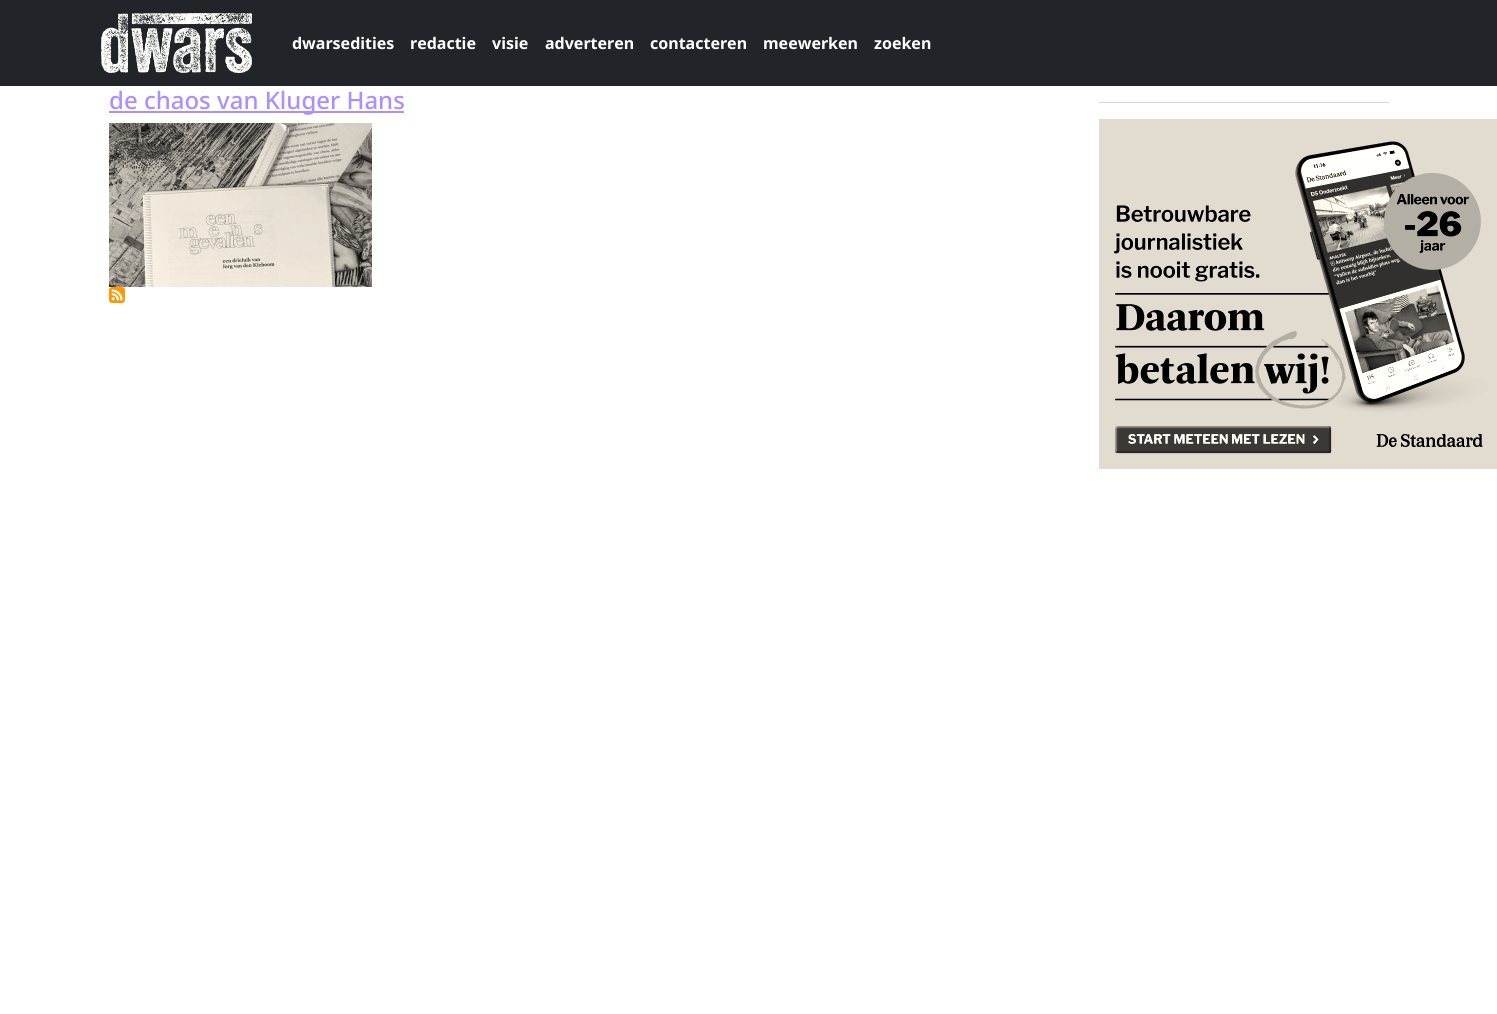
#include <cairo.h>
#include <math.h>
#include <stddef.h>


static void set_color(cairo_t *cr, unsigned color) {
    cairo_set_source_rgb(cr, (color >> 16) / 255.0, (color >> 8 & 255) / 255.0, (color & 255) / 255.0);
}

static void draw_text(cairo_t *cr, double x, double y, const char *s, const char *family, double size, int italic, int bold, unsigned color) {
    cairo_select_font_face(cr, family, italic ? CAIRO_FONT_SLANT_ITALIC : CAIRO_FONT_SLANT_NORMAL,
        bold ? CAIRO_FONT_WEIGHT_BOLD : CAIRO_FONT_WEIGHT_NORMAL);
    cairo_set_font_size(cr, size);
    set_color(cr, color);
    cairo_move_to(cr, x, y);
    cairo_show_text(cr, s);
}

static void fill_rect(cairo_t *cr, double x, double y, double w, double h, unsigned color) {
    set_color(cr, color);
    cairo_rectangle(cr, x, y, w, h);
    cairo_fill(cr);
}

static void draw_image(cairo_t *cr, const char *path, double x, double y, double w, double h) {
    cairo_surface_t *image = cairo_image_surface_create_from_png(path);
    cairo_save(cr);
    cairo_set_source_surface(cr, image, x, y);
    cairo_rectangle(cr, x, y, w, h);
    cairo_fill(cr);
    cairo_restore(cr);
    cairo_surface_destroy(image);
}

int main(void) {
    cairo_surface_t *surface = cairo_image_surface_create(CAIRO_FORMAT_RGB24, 1497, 1014);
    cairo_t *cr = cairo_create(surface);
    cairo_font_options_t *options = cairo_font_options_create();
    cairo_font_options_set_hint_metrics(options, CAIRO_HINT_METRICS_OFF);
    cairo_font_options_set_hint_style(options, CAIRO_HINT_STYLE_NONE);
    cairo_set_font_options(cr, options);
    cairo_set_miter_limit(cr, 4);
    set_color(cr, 0xFFFFFF);
    cairo_paint(cr);
    fill_rect(cr, 0, 0, 1497, 86, 0x212529);
    draw_image(cr, "assets/img1.png", 101, 13, 151, 60);
    draw_text(cr, 292, 49, "dwarsedities", "Noto Sans", 16, 0, 1, 0xFFFFFF);
    draw_text(cr, 410, 49, "redactie", "Noto Sans", 16, 0, 1, 0xFFFFFF);
    draw_text(cr, 492, 49, "visie", "Noto Sans", 16, 0, 1, 0xFFFFFF);
    draw_text(cr, 545, 49, "adverteren", "Noto Sans", 16, 0, 1, 0xFFFFFF);
    draw_text(cr, 650, 49, "contacteren", "Noto Sans", 16, 0, 1, 0xFFFFFF);
    draw_text(cr, 763, 49, "meewerken", "Noto Sans", 16, 0, 1, 0xFFFFFF);
    draw_text(cr, 874, 49, "zoeken", "Noto Sans", 16, 0, 1, 0xFFFFFF);
    fill_rect(cr, 109, 111, 295, 2, 0xAB8FFF);
    draw_text(cr, 109, 109, "de chaos van Kluger Hans", "Noto Sans Medium", 24, 0, 0, 0xAB8FFF);
    draw_image(cr, "assets/img2.png", 109, 123, 263, 164);
    draw_image(cr, "assets/img3.png", 109, 287, 16, 16);
    fill_rect(cr, 1099, 102, 290, 1, 0xD5D5D5);
    draw_image(cr, "assets/img4.png", 1099, 119, 398, 350);
    cairo_surface_write_to_png(surface, "output.png");
    cairo_font_options_destroy(options);
    cairo_destroy(cr);
    cairo_surface_destroy(surface);
    return 0;
}
